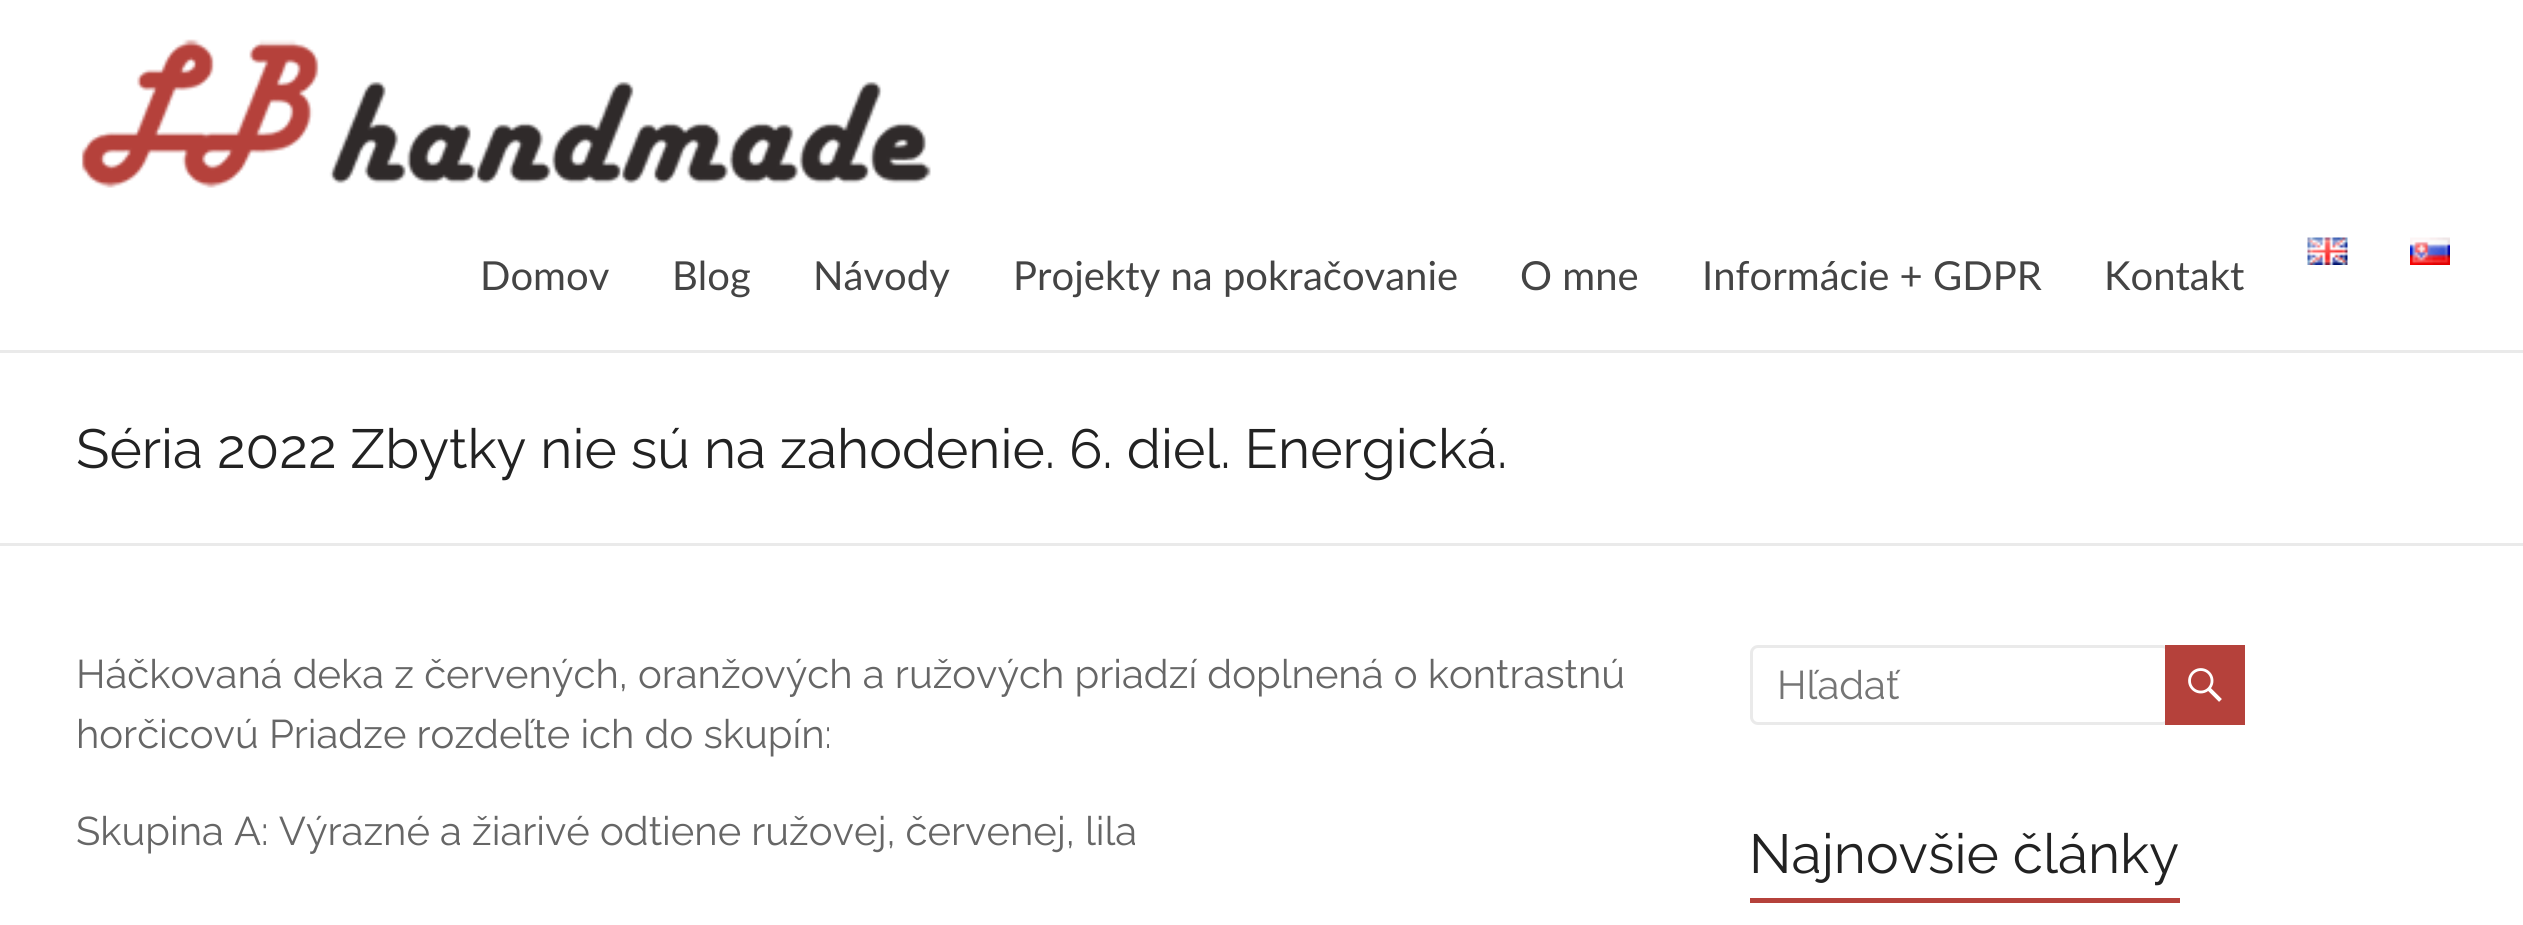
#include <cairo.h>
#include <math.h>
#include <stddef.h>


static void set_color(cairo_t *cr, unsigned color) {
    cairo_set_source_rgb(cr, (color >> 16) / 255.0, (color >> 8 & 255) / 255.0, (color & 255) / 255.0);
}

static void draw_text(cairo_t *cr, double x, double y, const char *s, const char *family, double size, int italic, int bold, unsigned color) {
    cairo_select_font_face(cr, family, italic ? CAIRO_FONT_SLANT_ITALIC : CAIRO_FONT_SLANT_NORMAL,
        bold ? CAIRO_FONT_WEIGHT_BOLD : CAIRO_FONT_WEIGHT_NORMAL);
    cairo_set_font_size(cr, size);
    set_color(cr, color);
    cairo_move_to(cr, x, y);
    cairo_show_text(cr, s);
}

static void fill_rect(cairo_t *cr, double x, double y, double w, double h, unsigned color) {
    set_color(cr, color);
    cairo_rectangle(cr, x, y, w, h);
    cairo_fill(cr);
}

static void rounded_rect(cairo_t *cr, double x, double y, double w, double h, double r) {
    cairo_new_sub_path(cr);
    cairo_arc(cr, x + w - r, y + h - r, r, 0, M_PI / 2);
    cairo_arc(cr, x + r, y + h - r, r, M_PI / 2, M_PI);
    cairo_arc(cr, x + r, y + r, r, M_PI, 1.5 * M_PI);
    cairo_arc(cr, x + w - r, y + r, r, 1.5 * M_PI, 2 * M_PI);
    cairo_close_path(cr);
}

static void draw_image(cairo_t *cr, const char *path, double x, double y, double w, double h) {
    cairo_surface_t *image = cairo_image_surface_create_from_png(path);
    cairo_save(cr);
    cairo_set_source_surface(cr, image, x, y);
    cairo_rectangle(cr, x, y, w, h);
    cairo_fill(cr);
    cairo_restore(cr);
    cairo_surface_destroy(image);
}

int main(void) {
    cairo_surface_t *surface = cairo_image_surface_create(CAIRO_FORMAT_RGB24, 2523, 925);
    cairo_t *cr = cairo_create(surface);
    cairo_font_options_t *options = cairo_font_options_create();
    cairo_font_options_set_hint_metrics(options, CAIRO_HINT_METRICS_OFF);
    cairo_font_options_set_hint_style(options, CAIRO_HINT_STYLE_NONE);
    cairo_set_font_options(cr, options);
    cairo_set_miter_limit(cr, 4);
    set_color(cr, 0xFFFFFF);
    cairo_paint(cr);
    fill_rect(cr, 0, 350, 2523, 3, 0xEAEAEA);
    draw_image(cr, "assets/img1.png", 81, 39, 850, 149);
    draw_image(cr, "assets/img2.png", 2307, 237, 41, 28);
    draw_image(cr, "assets/img3.png", 2410, 237, 40, 28);
    draw_text(cr, 480, 290, "Domov", "Lato", 40, 0, 0, 0x444444);
    draw_text(cr, 672, 290, "Blog", "Lato", 40, 0, 0, 0x444444);
    draw_text(cr, 813, 290, "Návody", "Lato", 40, 0, 0, 0x444444);
    draw_text(cr, 1013, 290, "Projekty na pokračovanie", "Lato", 40, 0, 0, 0x444444);
    draw_text(cr, 1520, 290, "O mne", "Lato", 40, 0, 0, 0x444444);
    draw_text(cr, 1702, 290, "Informácie + GDPR", "Lato", 40, 0, 0, 0x444444);
    draw_text(cr, 2104, 290, "Kontakt", "Lato", 40, 0, 0, 0x444444);
    fill_rect(cr, 0, 543, 2523, 3, 0xEAEAEA);
    draw_text(cr, 76, 468, "Séria 2022 Zbytky nie sú na zahodenie. 6. diel. Energická.", "Raleway Thin", 55, 0, 0, 0x222222);
    draw_text(cr, 76, 688, "Háčkovaná deka z červených, oranžových a ružových priadzí doplnená o kontrastnú", "Raleway Thin", 40, 0, 0, 0x666666);
    draw_text(cr, 76, 748, "horčicovú Priadze rozdeľte ich do skupín:", "Raleway Thin", 40, 0, 0, 0x666666);
    draw_text(cr, 76, 845, "Skupina A: Výrazné a žiarivé odtiene ružovej, červenej, lila", "Raleway Thin", 40, 0, 0, 0x666666);
    rounded_rect(cr, 1751.5, 646.5, 417, 77, 6.5);
    set_color(cr, 0xEAEAEA);
    cairo_set_line_width(cr, 3);
    cairo_stroke(cr);
    draw_text(cr, 1777, 699, "Hľadať", "Raleway Thin", 40, 0, 0, 0x757575);
    fill_rect(cr, 2165, 645, 80, 80, 0xB5413B);
    draw_image(cr, "assets/img4.png", 2188, 668, 34, 34);
    draw_text(cr, 1749, 873, "Najnovšie články", "Raleway Thin", 55, 0, 0, 0x222222);
    fill_rect(cr, 1750, 898, 430, 5, 0xB5413B);
    cairo_surface_write_to_png(surface, "output.png");
    cairo_font_options_destroy(options);
    cairo_destroy(cr);
    cairo_surface_destroy(surface);
    return 0;
}
